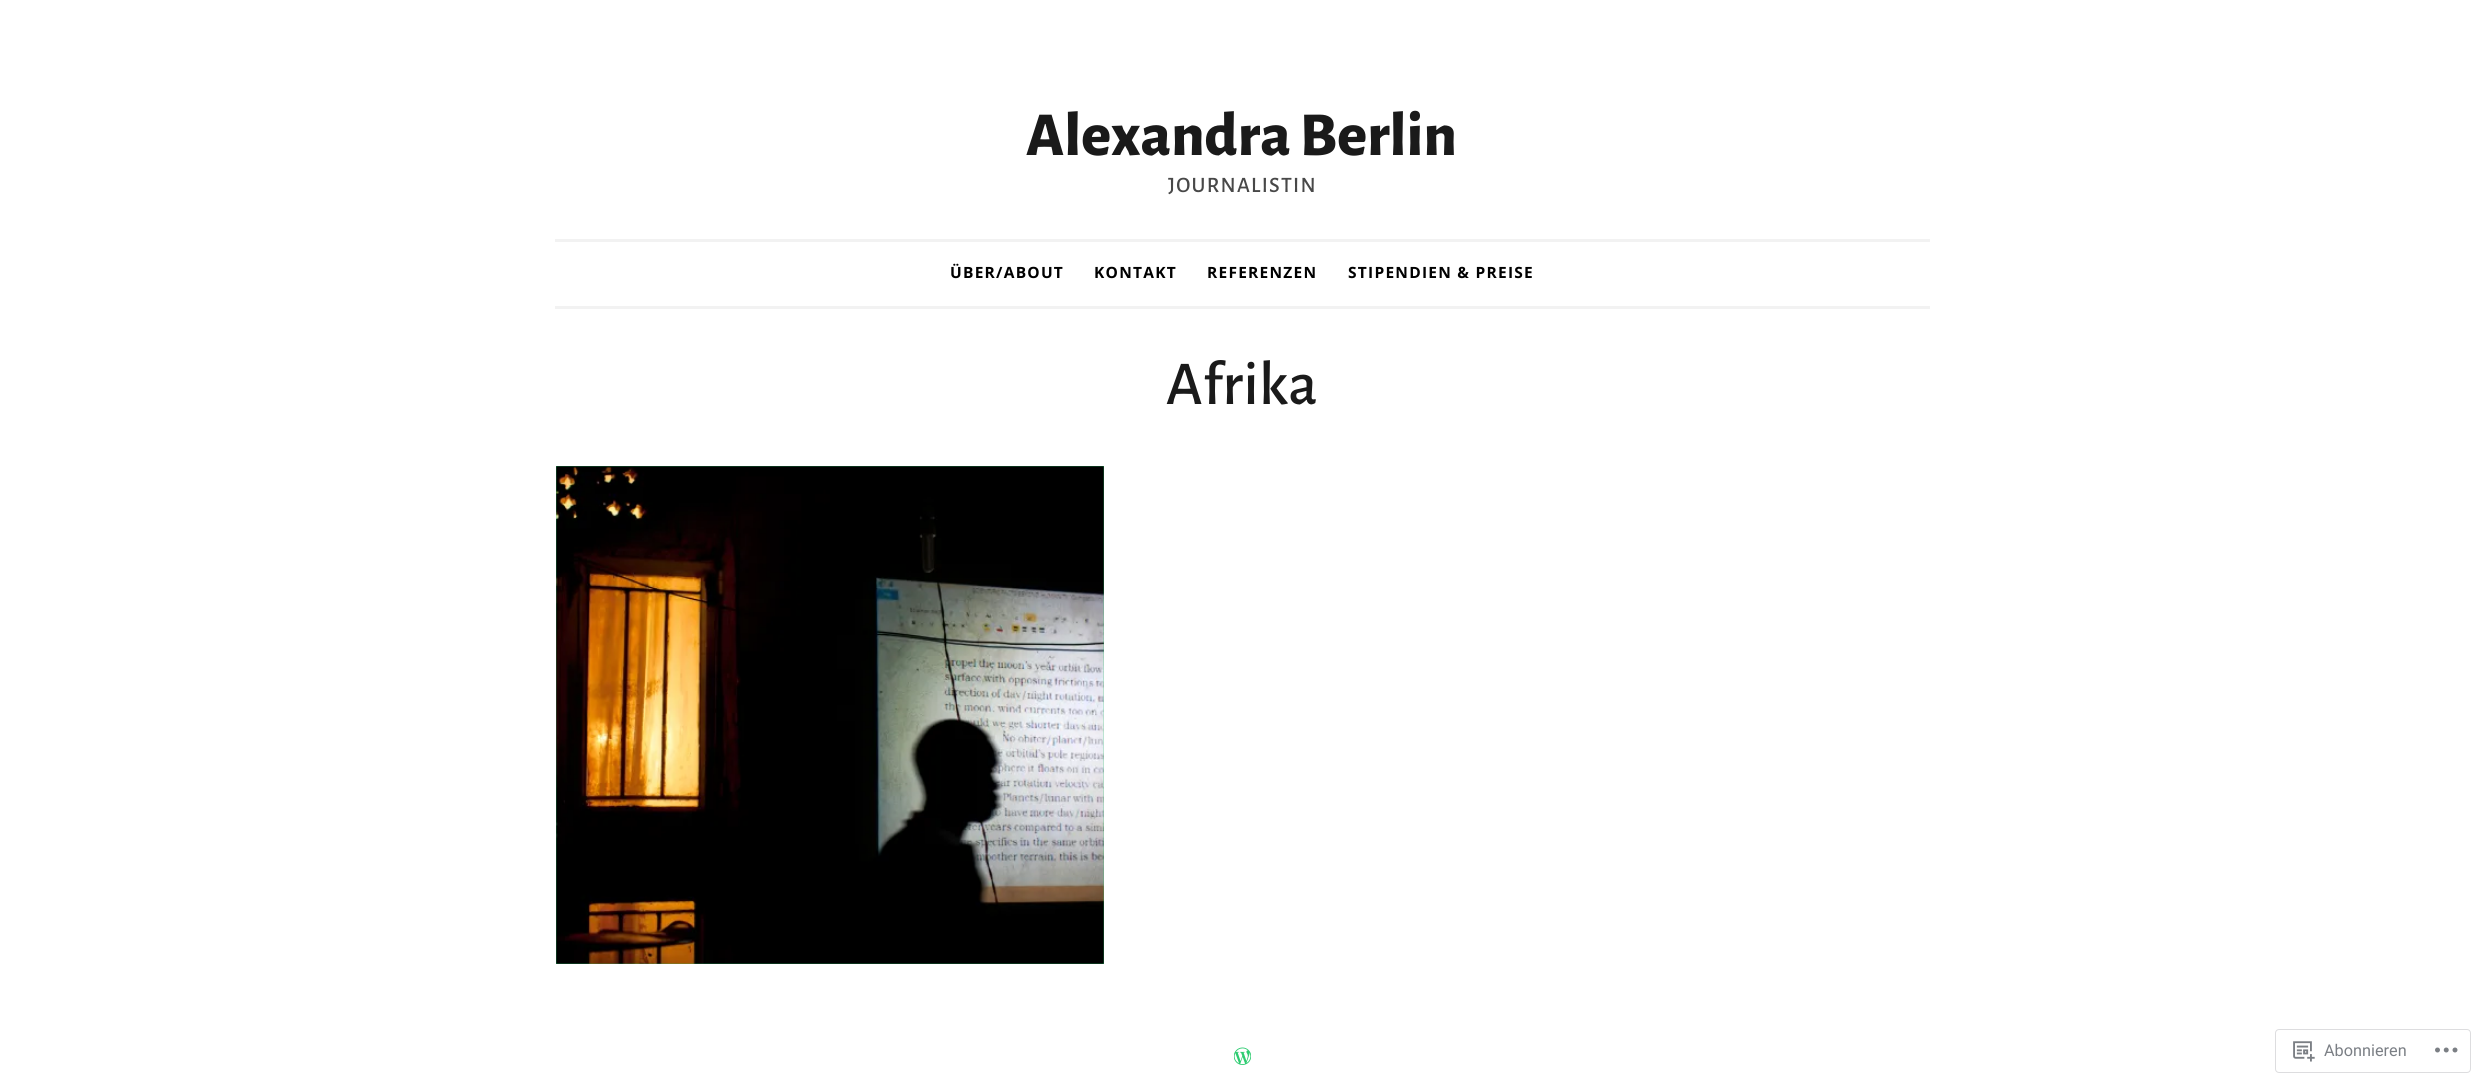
#include <cairo.h>
#include <math.h>
#include <stddef.h>


static void set_color(cairo_t *cr, unsigned color) {
    cairo_set_source_rgb(cr, (color >> 16) / 255.0, (color >> 8 & 255) / 255.0, (color & 255) / 255.0);
}

static void draw_text(cairo_t *cr, double x, double y, const char *s, const char *family, double size, int italic, int bold, unsigned color) {
    cairo_select_font_face(cr, family, italic ? CAIRO_FONT_SLANT_ITALIC : CAIRO_FONT_SLANT_NORMAL,
        bold ? CAIRO_FONT_WEIGHT_BOLD : CAIRO_FONT_WEIGHT_NORMAL);
    cairo_set_font_size(cr, size);
    set_color(cr, color);
    cairo_move_to(cr, x, y);
    cairo_show_text(cr, s);
}

static void draw_spaced(cairo_t *cr, double x, double y, const char *s, double letter, double word) {
    cairo_move_to(cr, x, y);
    while (*s) {
        char ch[5] = {0};
        int n = 0;
        do ch[n++] = *s++; while ((*s & 0xC0) == 0x80);
        cairo_show_text(cr, ch);
        cairo_rel_move_to(cr, letter + word * (*ch == ' '), 0);
    }
}

static void fill_rect(cairo_t *cr, double x, double y, double w, double h, unsigned color) {
    set_color(cr, color);
    cairo_rectangle(cr, x, y, w, h);
    cairo_fill(cr);
}

static void rounded_rect(cairo_t *cr, double x, double y, double w, double h, double r) {
    cairo_new_sub_path(cr);
    cairo_arc(cr, x + w - r, y + h - r, r, 0, M_PI / 2);
    cairo_arc(cr, x + r, y + h - r, r, M_PI / 2, M_PI);
    cairo_arc(cr, x + r, y + r, r, M_PI, 1.5 * M_PI);
    cairo_arc(cr, x + w - r, y + r, r, 1.5 * M_PI, 2 * M_PI);
    cairo_close_path(cr);
}

static void draw_image(cairo_t *cr, const char *path, double x, double y, double w, double h) {
    cairo_surface_t *image = cairo_image_surface_create_from_png(path);
    cairo_save(cr);
    cairo_set_source_surface(cr, image, x, y);
    cairo_rectangle(cr, x, y, w, h);
    cairo_fill(cr);
    cairo_restore(cr);
    cairo_surface_destroy(image);
}

int main(void) {
    cairo_surface_t *surface = cairo_image_surface_create(CAIRO_FORMAT_RGB24, 2483, 1085);
    cairo_t *cr = cairo_create(surface);
    cairo_font_options_t *options = cairo_font_options_create();
    cairo_font_options_set_hint_metrics(options, CAIRO_HINT_METRICS_OFF);
    cairo_font_options_set_hint_style(options, CAIRO_HINT_STYLE_NONE);
    cairo_set_font_options(cr, options);
    cairo_set_miter_limit(cr, 4);
    set_color(cr, 0xFFFFFF);
    cairo_paint(cr);
    draw_text(cr, 1026, 155, "Alexandra Berlin", "Alegreya Sans ExtraBold", 62.5, 0, 0, 0x1A1A1A);
    cairo_select_font_face(cr, "Alegreya Sans Medium", CAIRO_FONT_SLANT_NORMAL, CAIRO_FONT_WEIGHT_NORMAL);
    cairo_set_font_size(cr, 22);
    set_color(cr, 0x484848);
    draw_spaced(cr, 1168, 192, "JOURNALISTIN", 1.25, 0);
    fill_rect(cr, 555, 239, 1375, 3, 0xF2F2F2);
    fill_rect(cr, 555, 306, 1375, 3, 0xF2F2F2);
    cairo_select_font_face(cr, "Open Sans", CAIRO_FONT_SLANT_NORMAL, CAIRO_FONT_WEIGHT_BOLD);
    cairo_set_font_size(cr, 15.5);
    set_color(cr, 0x000000);
    draw_spaced(cr, 950, 278, "ÜBER/ABOUT", 1.25, 0);
    draw_spaced(cr, 1094, 278, "KONTAKT", 1.25, 0);
    draw_spaced(cr, 1207, 278, "REFERENZEN", 1.25, 0);
    draw_spaced(cr, 1348, 278, "STIPENDIEN & PREISE", 1.25, 0);
    draw_text(cr, 1166, 404, "Afrika", "Alegreya Sans Medium", 62.5, 0, 0, 0x1A1A1A);
    fill_rect(cr, 556, 466, 548, 498, 0x2ECC71);
    draw_image(cr, "assets/img1.png", 556, 466, 548, 498);
    draw_image(cr, "assets/img2.png", 1234, 1047, 17, 18);
    rounded_rect(cr, 2275.5, 1029.5, 195, 43, 3.5);
    set_color(cr, 0xDDDDDF);
    cairo_set_line_width(cr, 1);
    cairo_stroke(cr);
    draw_image(cr, "assets/img3.png", 2293, 1041, 22, 21);
    draw_text(cr, 2324, 1056, "Abonnieren", "Roboto", 16.25, 0, 0, 0x7B7F85);
    draw_image(cr, "assets/img4.png", 2435, 1047, 23, 6);
    cairo_surface_write_to_png(surface, "output.png");
    cairo_font_options_destroy(options);
    cairo_destroy(cr);
    cairo_surface_destroy(surface);
    return 0;
}
